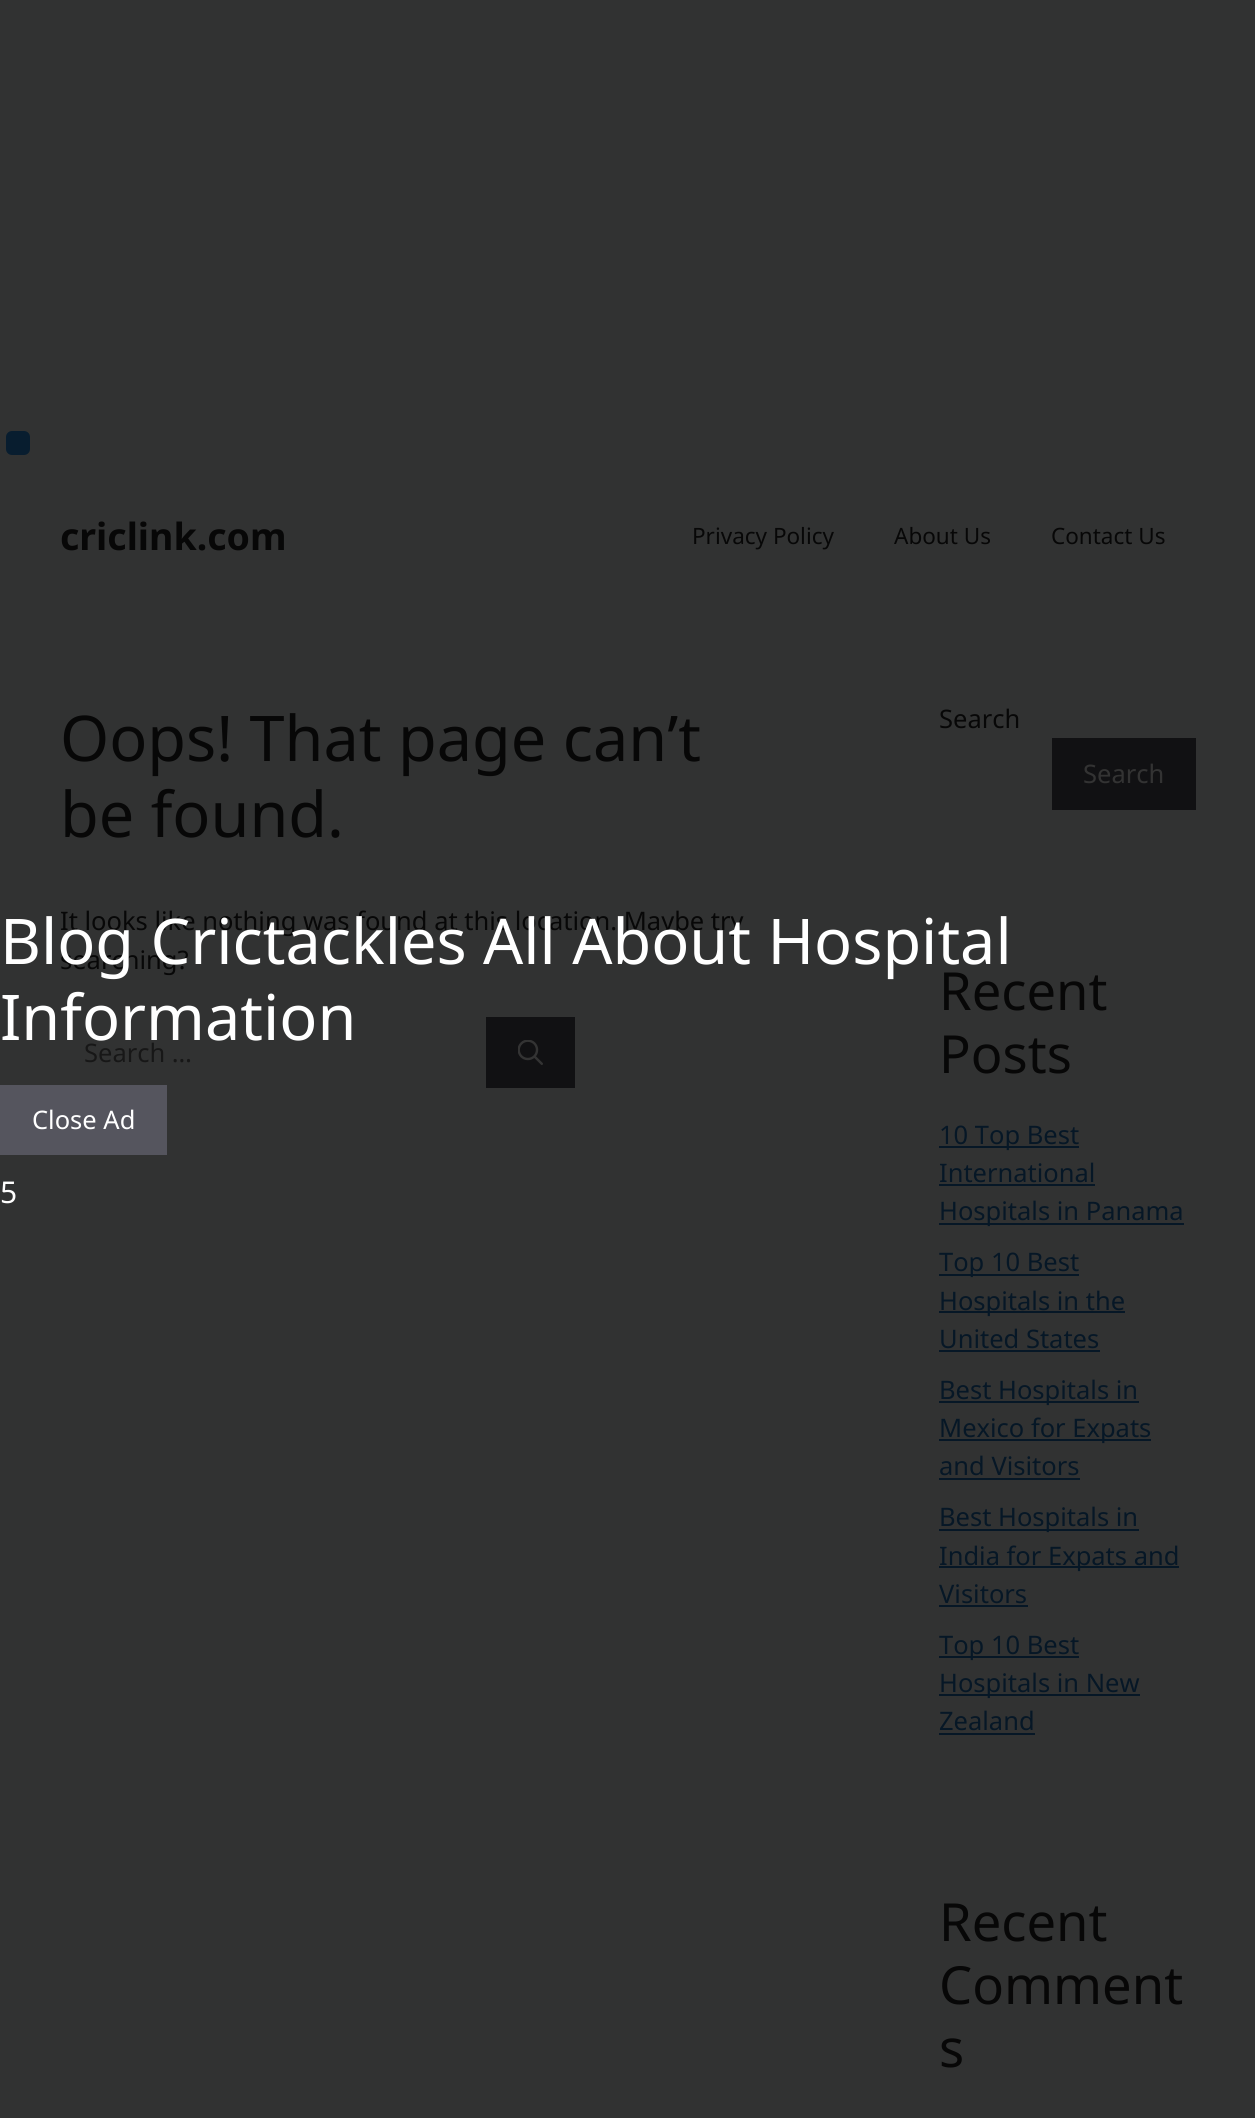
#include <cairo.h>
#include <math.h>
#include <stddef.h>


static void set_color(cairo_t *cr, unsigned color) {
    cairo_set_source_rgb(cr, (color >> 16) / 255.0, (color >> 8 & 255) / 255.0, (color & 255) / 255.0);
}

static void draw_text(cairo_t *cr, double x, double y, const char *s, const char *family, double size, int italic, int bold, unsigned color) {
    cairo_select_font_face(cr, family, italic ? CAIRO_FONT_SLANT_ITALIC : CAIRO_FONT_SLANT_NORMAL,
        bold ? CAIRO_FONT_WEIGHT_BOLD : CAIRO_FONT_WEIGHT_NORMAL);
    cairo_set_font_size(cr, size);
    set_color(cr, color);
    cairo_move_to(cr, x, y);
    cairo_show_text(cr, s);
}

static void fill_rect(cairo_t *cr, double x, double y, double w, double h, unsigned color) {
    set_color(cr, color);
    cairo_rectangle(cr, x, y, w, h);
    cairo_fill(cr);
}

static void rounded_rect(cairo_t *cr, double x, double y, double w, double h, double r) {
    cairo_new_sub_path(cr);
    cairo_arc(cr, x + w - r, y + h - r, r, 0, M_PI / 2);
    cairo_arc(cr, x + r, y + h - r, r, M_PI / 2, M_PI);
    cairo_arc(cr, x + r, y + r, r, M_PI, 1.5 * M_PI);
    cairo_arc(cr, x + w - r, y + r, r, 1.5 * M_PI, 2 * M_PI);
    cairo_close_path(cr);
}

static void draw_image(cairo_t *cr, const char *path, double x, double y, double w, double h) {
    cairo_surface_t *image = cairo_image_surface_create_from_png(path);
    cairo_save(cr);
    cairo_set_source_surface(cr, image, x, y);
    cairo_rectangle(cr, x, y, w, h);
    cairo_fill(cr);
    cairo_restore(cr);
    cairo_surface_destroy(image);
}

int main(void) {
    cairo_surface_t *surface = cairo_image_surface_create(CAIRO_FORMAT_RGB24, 1255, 2118);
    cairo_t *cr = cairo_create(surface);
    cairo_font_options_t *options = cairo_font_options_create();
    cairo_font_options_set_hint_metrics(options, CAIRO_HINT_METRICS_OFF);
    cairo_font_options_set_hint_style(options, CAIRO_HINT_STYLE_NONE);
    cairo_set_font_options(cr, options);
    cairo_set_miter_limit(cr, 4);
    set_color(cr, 0x313232);
    cairo_paint(cr);
    set_color(cr, 0x081D2F);
    rounded_rect(cr, 6, 431, 24, 24, 6);
    cairo_fill(cr);
    draw_text(cr, 60, 550, "criclink.com", "Noto Sans", 37.5, 0, 1, 0x070707);
    draw_text(cr, 692, 544, "Privacy Policy", "Noto Sans", 22.5, 0, 0, 0x070707);
    draw_text(cr, 894, 544, "About Us", "Noto Sans", 22.5, 0, 0, 0x070707);
    draw_text(cr, 1051, 544, "Contact Us", "Noto Sans", 22.5, 0, 0, 0x070707);
    draw_text(cr, 60, 761, "Oops! That page can’t", "Noto Sans", 63, 0, 0, 0x070707);
    draw_text(cr, 60, 837, "be found.", "Noto Sans", 63, 0, 0, 0x070707);
    draw_text(cr, 60, 930, "It looks like nothing was found at this location. Maybe try", "Noto Sans", 25.5, 0, 0, 0x070707);
    draw_text(cr, 60, 969, "searching?", "Noto Sans", 25.5, 0, 0, 0x070707);
    draw_text(cr, 84, 1062, "Search …", "Noto Sans", 25.5, 0, 0, 0x171717);
    fill_rect(cr, 486, 1017, 89, 71, 0x111113);
    draw_image(cr, "assets/img1.png", 518, 1040, 25, 25);
    draw_text(cr, 939, 728, "Search", "Noto Sans", 25.5, 0, 0, 0x070707);
    fill_rect(cr, 1052, 738, 144, 72, 0x111113);
    draw_text(cr, 1083, 783, "Search", "Noto Sans", 25.5, 0, 0, 0x333333);
    draw_text(cr, 939, 1010, "Recent", "Noto Sans", 52.5, 0, 0, 0x070707);
    draw_text(cr, 939, 1073, "Posts", "Noto Sans", 52.5, 0, 0, 0x070707);
    fill_rect(cr, 939, 1146, 140, 2, 0x061726);
    draw_text(cr, 939, 1144, "10 Top Best", "Noto Sans", 25.5, 0, 0, 0x061726);
    draw_text(cr, 939, 1182, "International", "Noto Sans", 25.5, 0, 0, 0x061726);
    fill_rect(cr, 939, 1184, 156, 2, 0x061726);
    fill_rect(cr, 939, 1223, 245, 2, 0x061726);
    draw_text(cr, 939, 1220, "Hospitals in Panama", "Noto Sans", 25.5, 0, 0, 0x061726);
    fill_rect(cr, 939, 1274, 140, 2, 0x061726);
    draw_text(cr, 939, 1271, "Top 10 Best", "Noto Sans", 25.5, 0, 0, 0x061726);
    fill_rect(cr, 939, 1311, 186, 2, 0x061726);
    draw_text(cr, 939, 1310, "Hospitals in the", "Noto Sans", 25.5, 0, 0, 0x061726);
    draw_text(cr, 939, 1348, "United States", "Noto Sans", 25.5, 0, 0, 0x061726);
    fill_rect(cr, 939, 1350, 161, 2, 0x061726);
    fill_rect(cr, 939, 1401, 200, 2, 0x061726);
    draw_text(cr, 939, 1399, "Best Hospitals in", "Noto Sans", 25.5, 0, 0, 0x061726);
    fill_rect(cr, 939, 1439, 212, 2, 0x061726);
    draw_text(cr, 939, 1437, "Mexico for Expats", "Noto Sans", 25.5, 0, 0, 0x061726);
    draw_text(cr, 939, 1475, "and Visitors", "Noto Sans", 25.5, 0, 0, 0x061726);
    fill_rect(cr, 939, 1478, 141, 2, 0x061726);
    fill_rect(cr, 939, 1529, 200, 2, 0x061726);
    draw_text(cr, 939, 1526, "Best Hospitals in", "Noto Sans", 25.5, 0, 0, 0x061726);
    fill_rect(cr, 939, 1566, 240, 2, 0x061726);
    draw_text(cr, 939, 1565, "India for Expats and", "Noto Sans", 25.5, 0, 0, 0x061726);
    draw_text(cr, 939, 1603, "Visitors", "Noto Sans", 25.5, 0, 0, 0x061726);
    fill_rect(cr, 939, 1605, 89, 2, 0x061726);
    fill_rect(cr, 939, 1656, 140, 2, 0x061726);
    draw_text(cr, 939, 1654, "Top 10 Best", "Noto Sans", 25.5, 0, 0, 0x061726);
    fill_rect(cr, 939, 1694, 201, 2, 0x061726);
    draw_text(cr, 939, 1692, "Hospitals in New", "Noto Sans", 25.5, 0, 0, 0x061726);
    draw_text(cr, 939, 1730, "Zealand", "Noto Sans", 25.5, 0, 0, 0x061726);
    fill_rect(cr, 939, 1733, 96, 2, 0x061726);
    draw_text(cr, 939, 1941, "Recent", "Noto Sans", 52.5, 0, 0, 0x070707);
    draw_text(cr, 939, 2004, "Comment", "Noto Sans", 52.5, 0, 0, 0x070707);
    draw_text(cr, 939, 2067, "s", "Noto Sans", 52.5, 0, 0, 0x070707);
    draw_text(cr, 0, 964, "Blog Crictackles All About Hospital", "Noto Sans", 63, 0, 0, 0xFFFFFF);
    draw_text(cr, 0, 1040, "Information", "Noto Sans", 63, 0, 0, 0xFFFFFF);
    fill_rect(cr, 0, 1085, 167, 70, 0x55555E);
    draw_text(cr, 32, 1129, "Close Ad", "Noto Sans", 25.5, 0, 0, 0xFFFFFF);
    draw_text(cr, 0, 1203, "5", "Noto Sans", 30, 0, 0, 0xFFFFFF);
    cairo_surface_write_to_png(surface, "output.png");
    cairo_font_options_destroy(options);
    cairo_destroy(cr);
    cairo_surface_destroy(surface);
    return 0;
}
